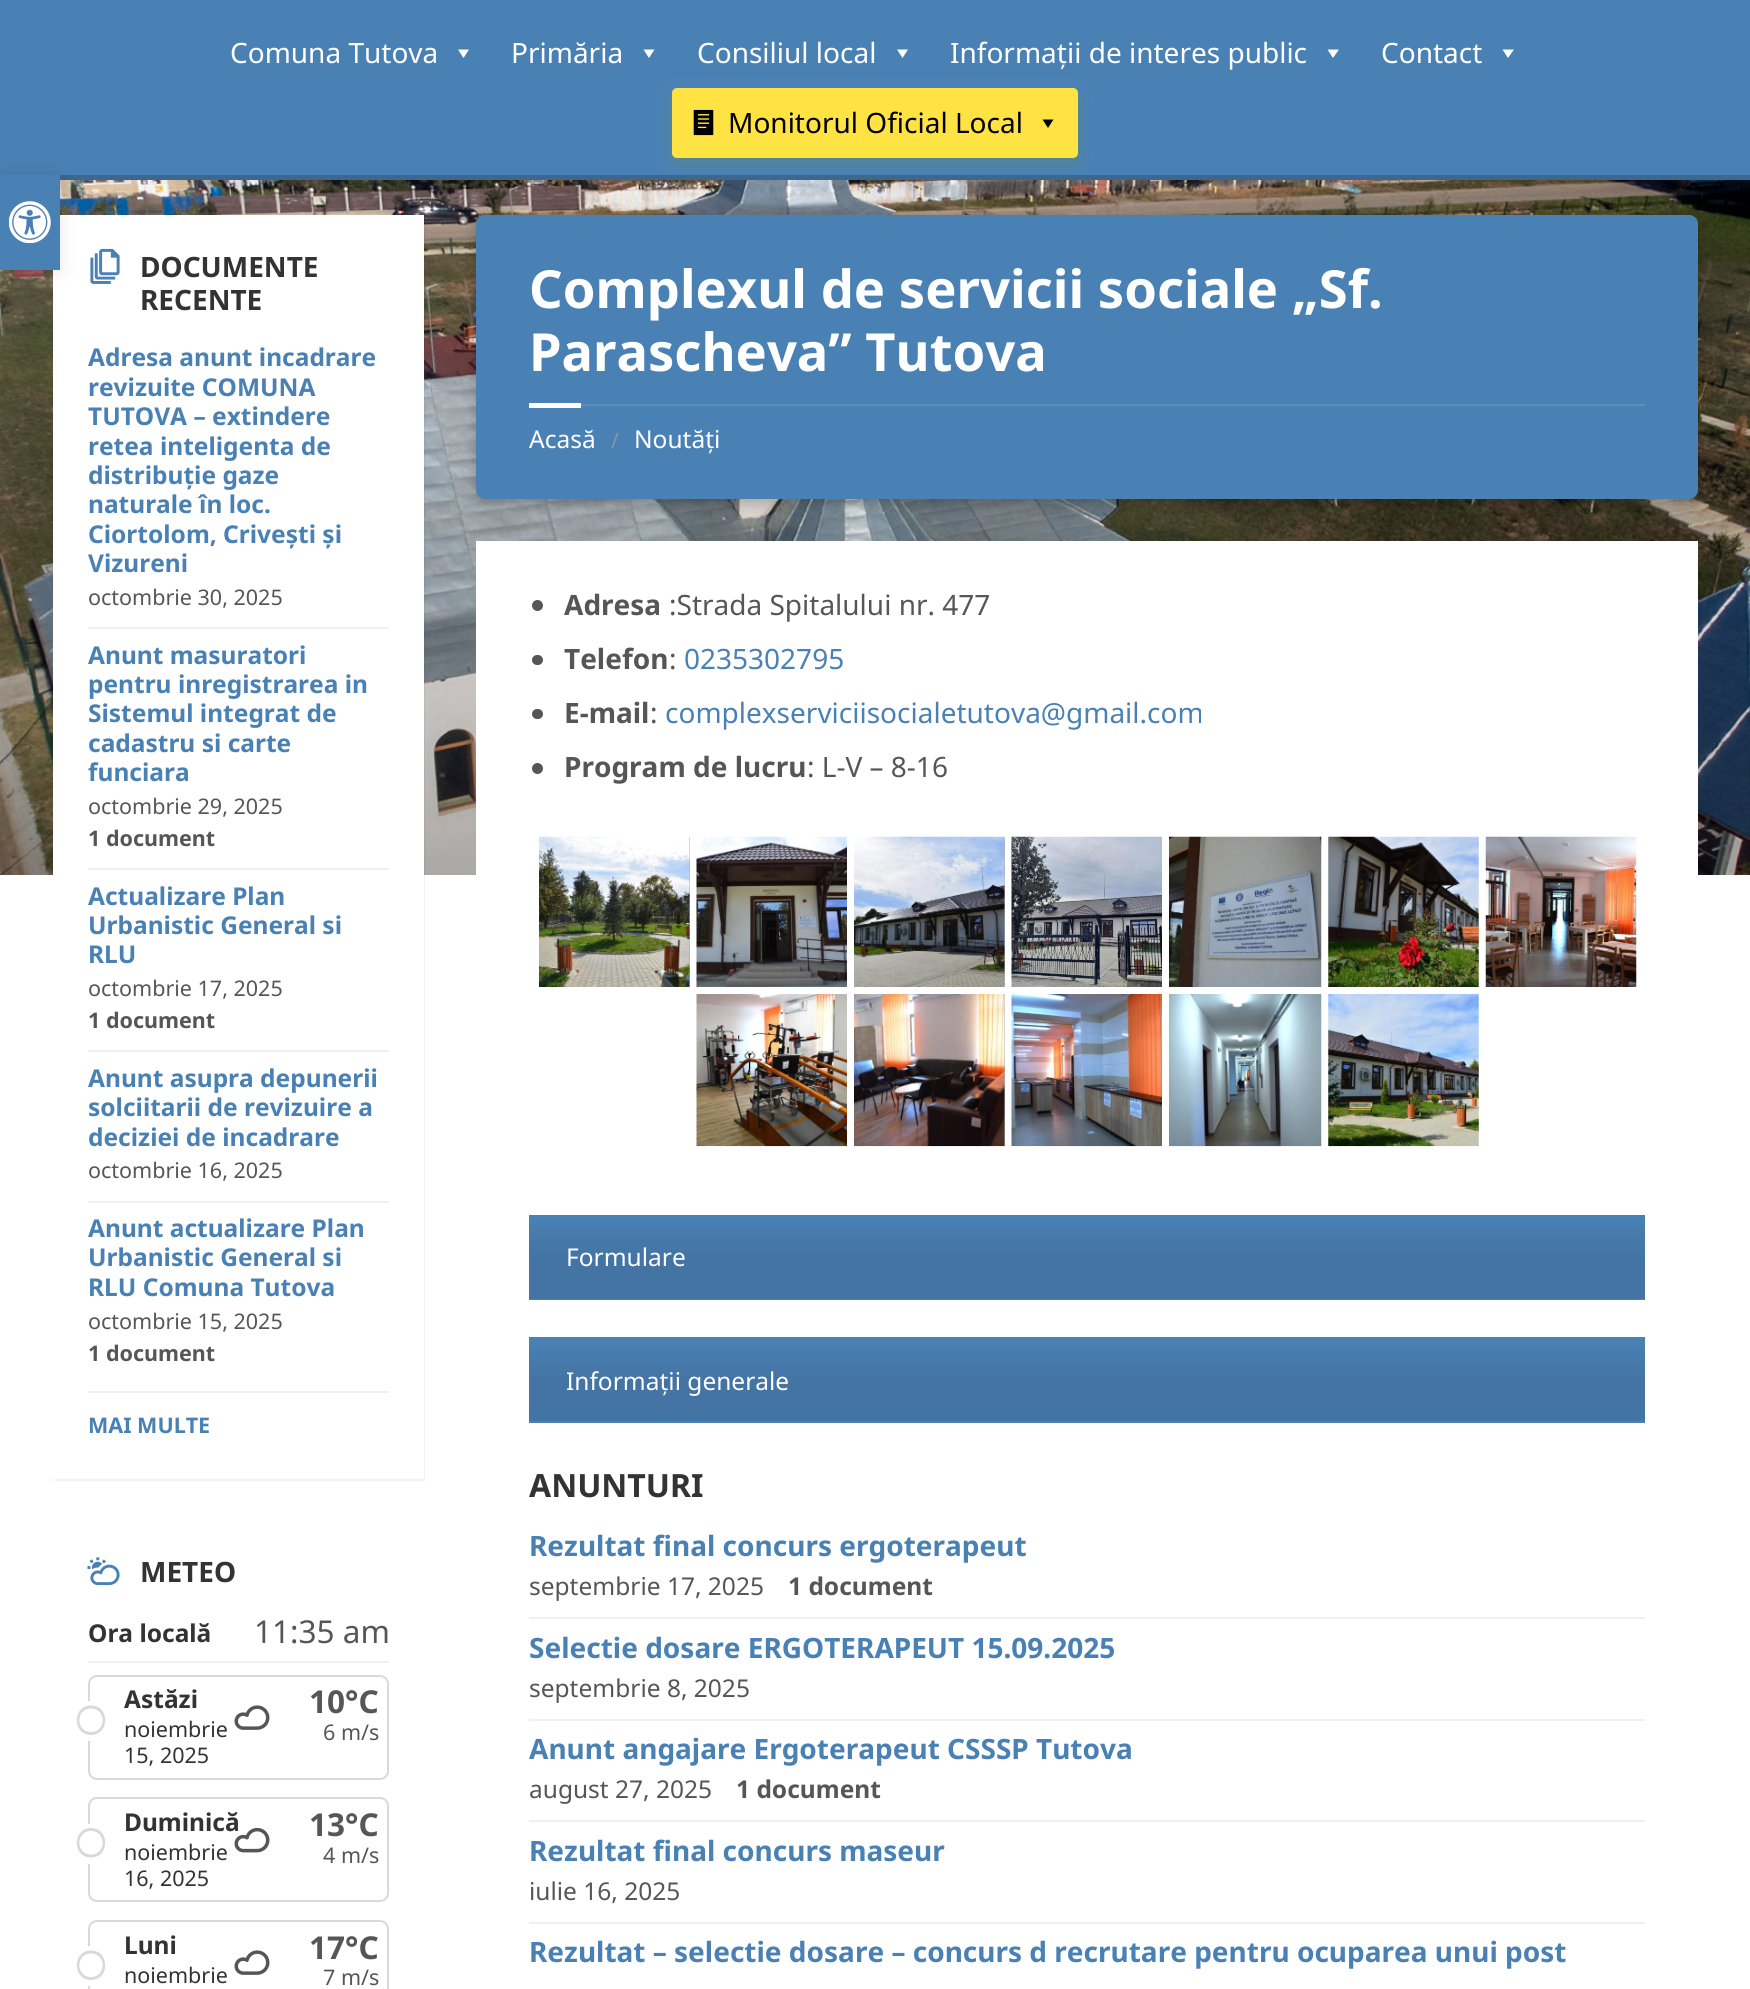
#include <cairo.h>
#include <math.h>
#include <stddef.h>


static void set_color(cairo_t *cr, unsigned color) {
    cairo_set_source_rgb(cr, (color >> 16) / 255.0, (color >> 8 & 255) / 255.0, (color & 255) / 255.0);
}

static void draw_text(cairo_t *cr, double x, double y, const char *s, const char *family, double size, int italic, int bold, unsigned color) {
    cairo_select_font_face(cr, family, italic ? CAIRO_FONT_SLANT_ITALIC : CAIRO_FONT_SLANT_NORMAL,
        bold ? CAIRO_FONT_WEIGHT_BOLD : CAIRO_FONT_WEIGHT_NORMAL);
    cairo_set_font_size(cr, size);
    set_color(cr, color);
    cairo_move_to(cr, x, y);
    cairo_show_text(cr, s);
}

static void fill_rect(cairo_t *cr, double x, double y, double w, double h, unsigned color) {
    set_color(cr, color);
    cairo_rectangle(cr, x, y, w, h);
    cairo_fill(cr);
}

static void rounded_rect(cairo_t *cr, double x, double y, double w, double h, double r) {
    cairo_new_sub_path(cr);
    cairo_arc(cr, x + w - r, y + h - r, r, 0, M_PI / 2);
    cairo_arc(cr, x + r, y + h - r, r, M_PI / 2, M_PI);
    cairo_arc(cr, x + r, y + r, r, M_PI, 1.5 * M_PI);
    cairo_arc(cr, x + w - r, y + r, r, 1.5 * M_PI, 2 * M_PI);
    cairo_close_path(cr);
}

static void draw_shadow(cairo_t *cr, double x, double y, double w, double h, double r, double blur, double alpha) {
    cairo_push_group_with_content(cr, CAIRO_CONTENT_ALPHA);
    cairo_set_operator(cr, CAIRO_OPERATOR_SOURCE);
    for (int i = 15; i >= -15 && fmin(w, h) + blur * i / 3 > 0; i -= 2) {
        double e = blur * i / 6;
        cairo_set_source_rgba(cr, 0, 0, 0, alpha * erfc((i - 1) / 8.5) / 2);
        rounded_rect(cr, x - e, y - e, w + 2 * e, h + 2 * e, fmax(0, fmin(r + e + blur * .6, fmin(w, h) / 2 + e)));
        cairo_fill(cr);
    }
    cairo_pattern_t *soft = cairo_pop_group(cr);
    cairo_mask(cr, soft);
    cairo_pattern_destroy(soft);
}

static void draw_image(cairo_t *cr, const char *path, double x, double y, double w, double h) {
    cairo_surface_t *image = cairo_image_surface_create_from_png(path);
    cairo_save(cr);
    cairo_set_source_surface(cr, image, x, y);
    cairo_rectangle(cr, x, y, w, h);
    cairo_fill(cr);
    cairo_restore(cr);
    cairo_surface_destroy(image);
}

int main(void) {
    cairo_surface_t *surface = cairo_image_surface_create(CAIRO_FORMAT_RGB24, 1750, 1989);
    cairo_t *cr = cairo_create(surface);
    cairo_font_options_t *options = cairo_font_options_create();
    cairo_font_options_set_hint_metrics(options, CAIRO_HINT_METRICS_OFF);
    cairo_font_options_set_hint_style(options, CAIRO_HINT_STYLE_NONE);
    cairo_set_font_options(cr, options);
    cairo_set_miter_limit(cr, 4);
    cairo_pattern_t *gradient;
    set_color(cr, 0xFFFFFF);
    cairo_paint(cr);
    fill_rect(cr, 0, 0, 1750, 175, 0x4A81B5);
    fill_rect(cr, 60, 175, 1690, 5, 0x3B6791);
    draw_image(cr, "assets/img3.png", 0, 180, 1750, 695);
    cairo_set_source_rgba(cr, 0, 0, 0, 0.05);
    cairo_new_path(cr);
    cairo_move_to(cr, 54, 1479);
    cairo_line_to(cr, 54, 1481);
    cairo_line_to(cr, 425, 1481);
    cairo_line_to(cr, 425, 217);
    cairo_line_to(cr, 424, 217);
    cairo_line_to(cr, 424, 1479);
    cairo_close_path(cr);
    cairo_fill(cr);
    fill_rect(cr, 53, 215, 371, 660, 0xFFFFFF);
    set_color(cr, 0x000000);
    draw_shadow(cr, 0, 175, 60, 95, 0, 9, 0.1);
    fill_rect(cr, 0, 175, 60, 95, 0x4A81B5);
    draw_image(cr, "assets/img1.png", 9, 201, 42, 42);
    draw_text(cr, 230, 63, "Comuna Tutova", "Noto Sans", 28, 0, 0, 0xFFFFFF);
    cairo_new_path(cr);
    cairo_move_to(cr, 469, 49.5);
    cairo_line_to(cr, 463.5, 58);
    cairo_line_to(cr, 458, 49.5);
    cairo_close_path(cr);
    cairo_fill(cr);
    draw_text(cr, 511, 63, "Primăria", "Noto Sans", 28, 0, 0, 0xFFFFFF);
    cairo_new_path(cr);
    cairo_move_to(cr, 654.5, 49.5);
    cairo_line_to(cr, 649, 58);
    cairo_line_to(cr, 643.5, 49.5);
    cairo_close_path(cr);
    cairo_fill(cr);
    draw_text(cr, 697, 63, "Consiliul local", "Noto Sans", 28, 0, 0, 0xFFFFFF);
    cairo_new_path(cr);
    cairo_move_to(cr, 908, 49.5);
    cairo_line_to(cr, 902.5, 58);
    cairo_line_to(cr, 897, 49.5);
    cairo_close_path(cr);
    cairo_fill(cr);
    draw_text(cr, 950, 63, "Informații de interes public", "Noto Sans", 28, 0, 0, 0xFFFFFF);
    cairo_new_path(cr);
    cairo_move_to(cr, 1339, 49.5);
    cairo_line_to(cr, 1333, 58);
    cairo_line_to(cr, 1327.5, 49.5);
    cairo_close_path(cr);
    cairo_fill(cr);
    draw_text(cr, 1381, 63, "Contact", "Noto Sans", 28, 0, 0, 0xFFFFFF);
    cairo_new_path(cr);
    cairo_move_to(cr, 1514, 49.5);
    cairo_line_to(cr, 1508, 58);
    cairo_line_to(cr, 1502.5, 49.5);
    cairo_close_path(cr);
    cairo_fill(cr);
    set_color(cr, 0x889904);
    draw_shadow(cr, 672, 93, 406, 70, 5, 7, 0.24);
    set_color(cr, 0xFFE343);
    rounded_rect(cr, 672, 88, 406, 70, 5);
    cairo_fill(cr);
    draw_image(cr, "assets/img2.png", 693, 109, 21, 27);
    draw_text(cr, 728, 133, "Monitorul Oficial Local", "Noto Sans", 28, 0, 0, 0x000000);
    cairo_new_path(cr);
    cairo_move_to(cr, 1053.5, 119.5);
    cairo_line_to(cr, 1048, 128);
    cairo_line_to(cr, 1042.5, 119.5);
    cairo_close_path(cr);
    cairo_fill(cr);
    draw_image(cr, "assets/img4.png", 90, 248, 30, 36);
    draw_text(cr, 140, 277, "DOCUMENTE", "Noto Sans", 28, 0, 1, 0x333333);
    draw_text(cr, 140, 310, "RECENTE", "Noto Sans", 28, 0, 1, 0x333333);
    draw_text(cr, 88, 366, "Adresa anunt incadrare", "Noto Sans", 24.5, 0, 1, 0x4A81B5);
    draw_text(cr, 88, 396, "revizuite COMUNA", "Noto Sans", 24.5, 0, 1, 0x4A81B5);
    draw_text(cr, 88, 425, "TUTOVA – extindere", "Noto Sans", 24.5, 0, 1, 0x4A81B5);
    draw_text(cr, 88, 455, "retea inteligenta de", "Noto Sans", 24.5, 0, 1, 0x4A81B5);
    draw_text(cr, 88, 484, "distribuție gaze", "Noto Sans", 24.5, 0, 1, 0x4A81B5);
    draw_text(cr, 88, 513, "naturale în loc.", "Noto Sans", 24.5, 0, 1, 0x4A81B5);
    draw_text(cr, 88, 543, "Ciortolom, Crivești și", "Noto Sans", 24.5, 0, 1, 0x4A81B5);
    draw_text(cr, 88, 572, "Vizureni", "Noto Sans", 24.5, 0, 1, 0x4A81B5);
    draw_text(cr, 88, 605, "octombrie 30, 2025", "Noto Sans", 21.5, 0, 0, 0x565656);
    fill_rect(cr, 88, 627, 301, 2, 0xF0F0F0);
    draw_text(cr, 88, 664, "Anunt masuratori", "Noto Sans", 24.5, 0, 1, 0x4A81B5);
    draw_text(cr, 88, 693, "pentru inregistrarea in", "Noto Sans", 24.5, 0, 1, 0x4A81B5);
    draw_text(cr, 88, 722, "Sistemul integrat de", "Noto Sans", 24.5, 0, 1, 0x4A81B5);
    draw_text(cr, 88, 752, "cadastru si carte", "Noto Sans", 24.5, 0, 1, 0x4A81B5);
    draw_text(cr, 88, 781, "funciara", "Noto Sans", 24.5, 0, 1, 0x4A81B5);
    draw_text(cr, 88, 814, "octombrie 29, 2025", "Noto Sans", 21.5, 0, 0, 0x565656);
    draw_text(cr, 88, 846, "1 document", "Noto Sans", 21.5, 0, 1, 0x565656);
    fill_rect(cr, 88, 868, 301, 2, 0xF0F0F0);
    draw_text(cr, 88, 905, "Actualizare Plan", "Noto Sans", 24.5, 0, 1, 0x4A81B5);
    draw_text(cr, 88, 934, "Urbanistic General si", "Noto Sans", 24.5, 0, 1, 0x4A81B5);
    draw_text(cr, 88, 963, "RLU", "Noto Sans", 24.5, 0, 1, 0x4A81B5);
    draw_text(cr, 88, 996, "octombrie 17, 2025", "Noto Sans", 21.5, 0, 0, 0x565656);
    draw_text(cr, 88, 1028, "1 document", "Noto Sans", 21.5, 0, 1, 0x565656);
    fill_rect(cr, 88, 1050, 301, 2, 0xF0F0F0);
    draw_text(cr, 88, 1087, "Anunt asupra depunerii", "Noto Sans", 24.5, 0, 1, 0x4A81B5);
    draw_text(cr, 88, 1116, "solciitarii de revizuire a", "Noto Sans", 24.5, 0, 1, 0x4A81B5);
    draw_text(cr, 88, 1146, "deciziei de incadrare", "Noto Sans", 24.5, 0, 1, 0x4A81B5);
    draw_text(cr, 88, 1178, "octombrie 16, 2025", "Noto Sans", 21.5, 0, 0, 0x565656);
    fill_rect(cr, 88, 1201, 301, 2, 0xF0F0F0);
    draw_text(cr, 88, 1237, "Anunt actualizare Plan", "Noto Sans", 24.5, 0, 1, 0x4A81B5);
    draw_text(cr, 88, 1266, "Urbanistic General si", "Noto Sans", 24.5, 0, 1, 0x4A81B5);
    draw_text(cr, 88, 1296, "RLU Comuna Tutova", "Noto Sans", 24.5, 0, 1, 0x4A81B5);
    draw_text(cr, 88, 1329, "octombrie 15, 2025", "Noto Sans", 21.5, 0, 0, 0x565656);
    draw_text(cr, 88, 1361, "1 document", "Noto Sans", 21.5, 0, 1, 0x565656);
    fill_rect(cr, 88, 1391, 301, 2, 0xF0F0F0);
    draw_text(cr, 88, 1433, "MAI MULTE", "Noto Sans", 21.5, 0, 1, 0x4A81B5);
    draw_image(cr, "assets/img5.png", 87, 1557, 33, 29);
    draw_text(cr, 140, 1582, "METEO", "Noto Sans", 28, 0, 1, 0x333333);
    draw_text(cr, 88, 1642, "Ora locală", "Noto Sans", 24.5, 0, 1, 0x333333);
    draw_text(cr, 254, 1643, "11:35 am", "Noto Sans", 31.5, 0, 0, 0x565656);
    fill_rect(cr, 88, 1661, 301, 2, 0xF0F0F0);
    rounded_rect(cr, 89, 1676, 299, 103, 8);
    set_color(cr, 0xD9D9D9);
    cairo_stroke(cr);
    fill_rect(cr, 88, 1701, 2, 40, 0xFFFFFF);
    set_color(cr, 0xD9D9D9);
    cairo_new_path(cr);
    cairo_move_to(cr, 91, 1705.5);
    cairo_curve_to(cr, 72, 1705.5, 72, 1735, 91, 1735);
    cairo_curve_to(cr, 110, 1735, 110, 1705.5, 91, 1705.5);
    cairo_close_path(cr);
    cairo_move_to(cr, 91, 1732);
    cairo_curve_to(cr, 75.5, 1732, 75.5, 1708.5, 91, 1708.5);
    cairo_curve_to(cr, 106.5, 1708.5, 106.5, 1732, 91, 1732);
    cairo_close_path(cr);
    cairo_fill(cr);
    draw_text(cr, 124, 1708, "Astăzi", "Noto Sans", 24.5, 0, 1, 0x333333);
    draw_text(cr, 124, 1737, "noiembrie", "Noto Sans", 21.5, 0, 0, 0x333333);
    draw_text(cr, 124, 1763, "15, 2025", "Noto Sans", 21.5, 0, 0, 0x333333);
    draw_text(cr, 309, 1713, "10°C", "Noto Sans", 31.5, 0, 1, 0x565656);
    draw_image(cr, "assets/img6.png", 234, 1705, 36, 25);
    draw_text(cr, 323, 1740, "6 m/s", "Noto Sans", 21.5, 0, 0, 0x565656);
    rounded_rect(cr, 89, 1798, 299, 103, 8);
    set_color(cr, 0xD9D9D9);
    cairo_stroke(cr);
    fill_rect(cr, 88, 1824, 2, 40, 0xFFFFFF);
    set_color(cr, 0xD9D9D9);
    cairo_new_path(cr);
    cairo_move_to(cr, 91, 1828);
    cairo_curve_to(cr, 72, 1828, 72, 1857.5, 91, 1857.5);
    cairo_curve_to(cr, 110, 1857.5, 110, 1828, 91, 1828);
    cairo_close_path(cr);
    cairo_move_to(cr, 91, 1854.5);
    cairo_curve_to(cr, 75.5, 1854.5, 75.5, 1831, 91, 1831);
    cairo_curve_to(cr, 106.5, 1831, 106.5, 1854.5, 91, 1854.5);
    cairo_close_path(cr);
    cairo_fill(cr);
    draw_text(cr, 124, 1831, "Duminică", "Noto Sans", 24.5, 0, 1, 0x333333);
    draw_text(cr, 124, 1860, "noiembrie", "Noto Sans", 21.5, 0, 0, 0x333333);
    draw_text(cr, 124, 1886, "16, 2025", "Noto Sans", 21.5, 0, 0, 0x333333);
    draw_image(cr, "assets/img7.png", 234, 1827, 36, 26);
    draw_text(cr, 309, 1836, "13°C", "Noto Sans", 31.5, 0, 1, 0x565656);
    draw_text(cr, 323, 1863, "4 m/s", "Noto Sans", 21.5, 0, 0, 0x565656);
    rounded_rect(cr, 89, 1921, 299, 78, 8);
    set_color(cr, 0xD9D9D9);
    cairo_stroke(cr);
    fill_rect(cr, 88, 1946, 2, 40, 0xFFFFFF);
    set_color(cr, 0xD9D9D9);
    cairo_new_path(cr);
    cairo_move_to(cr, 91, 1950.5);
    cairo_curve_to(cr, 72, 1950.5, 72, 1980, 91, 1980);
    cairo_curve_to(cr, 110, 1980, 110, 1950.5, 91, 1950.5);
    cairo_close_path(cr);
    cairo_move_to(cr, 91, 1977);
    cairo_curve_to(cr, 75.5, 1977, 75.5, 1953.5, 91, 1953.5);
    cairo_curve_to(cr, 106.5, 1953.5, 106.5, 1977, 91, 1977);
    cairo_close_path(cr);
    cairo_fill(cr);
    draw_text(cr, 124, 1954, "Luni", "Noto Sans", 24.5, 0, 1, 0x333333);
    draw_text(cr, 124, 1983, "noiembrie", "Noto Sans", 21.5, 0, 0, 0x333333);
    draw_image(cr, "assets/img6.png", 234, 1950, 36, 25);
    draw_text(cr, 309, 1959, "17°C", "Noto Sans", 31.5, 0, 1, 0x565656);
    draw_text(cr, 323, 1985, "7 m/s", "Noto Sans", 21.5, 0, 0, 0x565656);
    set_color(cr, 0x000000);
    draw_shadow(cr, 476, 221, 1222, 283, 9, 7, 0.24);
    set_color(cr, 0x4A81B5);
    rounded_rect(cr, 476, 215, 1222, 284, 9);
    cairo_fill(cr);
    draw_text(cr, 529, 308, "Complexul de servicii sociale „Sf.", "Noto Sans", 52.5, 0, 1, 0xFFFFFF);
    draw_text(cr, 529, 371, "Parascheva” Tutova", "Noto Sans", 52.5, 0, 1, 0xFFFFFF);
    fill_rect(cr, 581, 404, 1064, 2, 0x5C8EBC);
    fill_rect(cr, 529, 403, 52, 5, 0xFFFFFF);
    draw_text(cr, 529, 448, "Acasă", "Noto Sans", 24.5, 0, 0, 0xFFFFFF);
    draw_text(cr, 611, 448, "/", "Noto Sans", 21, 0, 0, 0x8A949B);
    draw_text(cr, 634, 448, "Noutăți", "Noto Sans", 24.5, 0, 0, 0xFFFFFF);
    fill_rect(cr, 476, 541, 1222, 334, 0xFFFFFF);
    set_color(cr, 0x565656);
    cairo_new_path(cr);
    cairo_arc(cr, 537.5, 605.5, 5.5, 0, 2 * M_PI);
    cairo_fill(cr);
    draw_text(cr, 564, 615, "Adresa", "Noto Sans", 28, 0, 1, 0x565656);
    draw_text(cr, 669, 615, ":Strada Spitalului nr. 477", "Noto Sans", 28, 0, 0, 0x565656);
    rounded_rect(cr, 532, 655, 11, 10, 5);
    cairo_fill(cr);
    draw_text(cr, 564, 669, "Telefon", "Noto Sans", 28, 0, 1, 0x565656);
    draw_text(cr, 669, 669, ":", "Noto Sans", 28, 0, 0, 0x565656);
    draw_text(cr, 684, 669, "0235302795", "Noto Sans", 28, 0, 0, 0x4A81B5);
    set_color(cr, 0x565656);
    rounded_rect(cr, 532, 709, 11, 10, 5);
    cairo_fill(cr);
    draw_text(cr, 564, 723, "E-mail", "Noto Sans", 28, 0, 1, 0x565656);
    draw_text(cr, 650, 723, ":", "Noto Sans", 28, 0, 0, 0x565656);
    draw_text(cr, 665, 723, "complexserviciisocialetutova@gmail.com", "Noto Sans", 28, 0, 0, 0x4A81B5);
    set_color(cr, 0x565656);
    cairo_new_path(cr);
    cairo_arc(cr, 537.5, 768.5, 5.5, 0, 2 * M_PI);
    cairo_fill(cr);
    draw_text(cr, 564, 777, "Program de lucru", "Noto Sans", 28, 0, 1, 0x565656);
    draw_text(cr, 807, 777, ": L-V – 8-16", "Noto Sans", 28, 0, 0, 0x565656);
    fill_rect(cr, 689, 837, 1, 150, 0xB3B3B3);
    draw_image(cr, "assets/img8.png", 539, 836, 151, 151);
    draw_image(cr, "assets/img9.png", 696, 836, 151, 151);
    fill_rect(cr, 1004, 837, 1, 150, 0xB3B3B3);
    draw_image(cr, "assets/img10.png", 854, 836, 151, 151);
    draw_image(cr, "assets/img11.png", 1011, 836, 151, 151);
    draw_image(cr, "assets/img12.png", 1169, 836, 153, 151);
    draw_image(cr, "assets/img13.png", 1328, 836, 151, 151);
    draw_image(cr, "assets/img14.png", 1485, 836, 152, 151);
    draw_image(cr, "assets/img15.png", 696, 994, 151, 153);
    fill_rect(cr, 1004, 994, 1, 152, 0xB3B3B3);
    draw_image(cr, "assets/img16.png", 854, 994, 151, 153);
    draw_image(cr, "assets/img17.png", 1011, 994, 151, 153);
    draw_image(cr, "assets/img18.png", 1169, 994, 153, 153);
    draw_image(cr, "assets/img19.png", 1328, 994, 151, 153);
    fill_rect(cr, 529, 1215, 1116, 85, 0x4A81B5);
    gradient = cairo_pattern_create_linear(1643, 1216, 1643, 1299);
    cairo_pattern_add_color_stop_rgba(gradient, 0, 0.29, 0.506, 0.71, 1);
    cairo_pattern_add_color_stop_rgba(gradient, 0.5, 0.263, 0.455, 0.639, 1);
    cairo_pattern_add_color_stop_rgba(gradient, 1, 0.263, 0.455, 0.639, 1);
    cairo_set_source(cr, gradient);
    cairo_pattern_destroy(gradient);
    cairo_rectangle(cr, 529, 1222, 1116, 77);
    cairo_fill(cr);
    draw_text(cr, 566, 1266, "Formulare", "Noto Sans", 24.5, 0, 0, 0xFFFFFF);
    fill_rect(cr, 529, 1337, 1116, 86, 0x4A81B5);
    gradient = cairo_pattern_create_linear(1643, 1339, 1643, 1421);
    cairo_pattern_add_color_stop_rgba(gradient, 0, 0.29, 0.506, 0.71, 1);
    cairo_pattern_add_color_stop_rgba(gradient, 0.5, 0.263, 0.455, 0.639, 1);
    cairo_pattern_add_color_stop_rgba(gradient, 1, 0.263, 0.455, 0.639, 1);
    cairo_set_source(cr, gradient);
    cairo_pattern_destroy(gradient);
    cairo_rectangle(cr, 529, 1345, 1116, 76);
    cairo_fill(cr);
    draw_text(cr, 566, 1390, "Informații generale", "Noto Sans", 24.5, 0, 0, 0xFFFFFF);
    draw_text(cr, 529, 1497, "ANUNTURI", "Noto Sans", 32, 0, 1, 0x333333);
    draw_text(cr, 529, 1556, "Rezultat final concurs ergoterapeut", "Noto Sans", 28, 0, 1, 0x4A81B5);
    draw_text(cr, 529, 1595, "septembrie 17, 2025", "Noto Sans", 24.5, 0, 0, 0x565656);
    draw_text(cr, 788, 1595, "1 document", "Noto Sans", 24.5, 0, 1, 0x565656);
    fill_rect(cr, 529, 1617, 1116, 2, 0xF0F0F0);
    draw_text(cr, 529, 1658, "Selectie dosare ERGOTERAPEUT 15.09.2025", "Noto Sans", 28, 0, 1, 0x4A81B5);
    draw_text(cr, 529, 1697, "septembrie 8, 2025", "Noto Sans", 24.5, 0, 0, 0x565656);
    fill_rect(cr, 529, 1719, 1116, 2, 0xF0F0F0);
    draw_text(cr, 529, 1759, "Anunt angajare Ergoterapeut CSSSP Tutova", "Noto Sans", 28, 0, 1, 0x4A81B5);
    draw_text(cr, 529, 1798, "august 27, 2025", "Noto Sans", 24.5, 0, 0, 0x565656);
    draw_text(cr, 736, 1798, "1 document", "Noto Sans", 24.5, 0, 1, 0x565656);
    fill_rect(cr, 529, 1820, 1116, 2, 0xF0F0F0);
    draw_text(cr, 529, 1861, "Rezultat final concurs maseur", "Noto Sans", 28, 0, 1, 0x4A81B5);
    draw_text(cr, 529, 1900, "iulie 16, 2025", "Noto Sans", 24.5, 0, 0, 0x565656);
    fill_rect(cr, 529, 1922, 1116, 2, 0xF0F0F0);
    draw_text(cr, 529, 1962, "Rezultat – selectie dosare – concurs d recrutare pentru ocuparea unui post", "Noto Sans", 28, 0, 1, 0x4A81B5);
    cairo_surface_write_to_png(surface, "output.png");
    cairo_font_options_destroy(options);
    cairo_destroy(cr);
    cairo_surface_destroy(surface);
    return 0;
}
